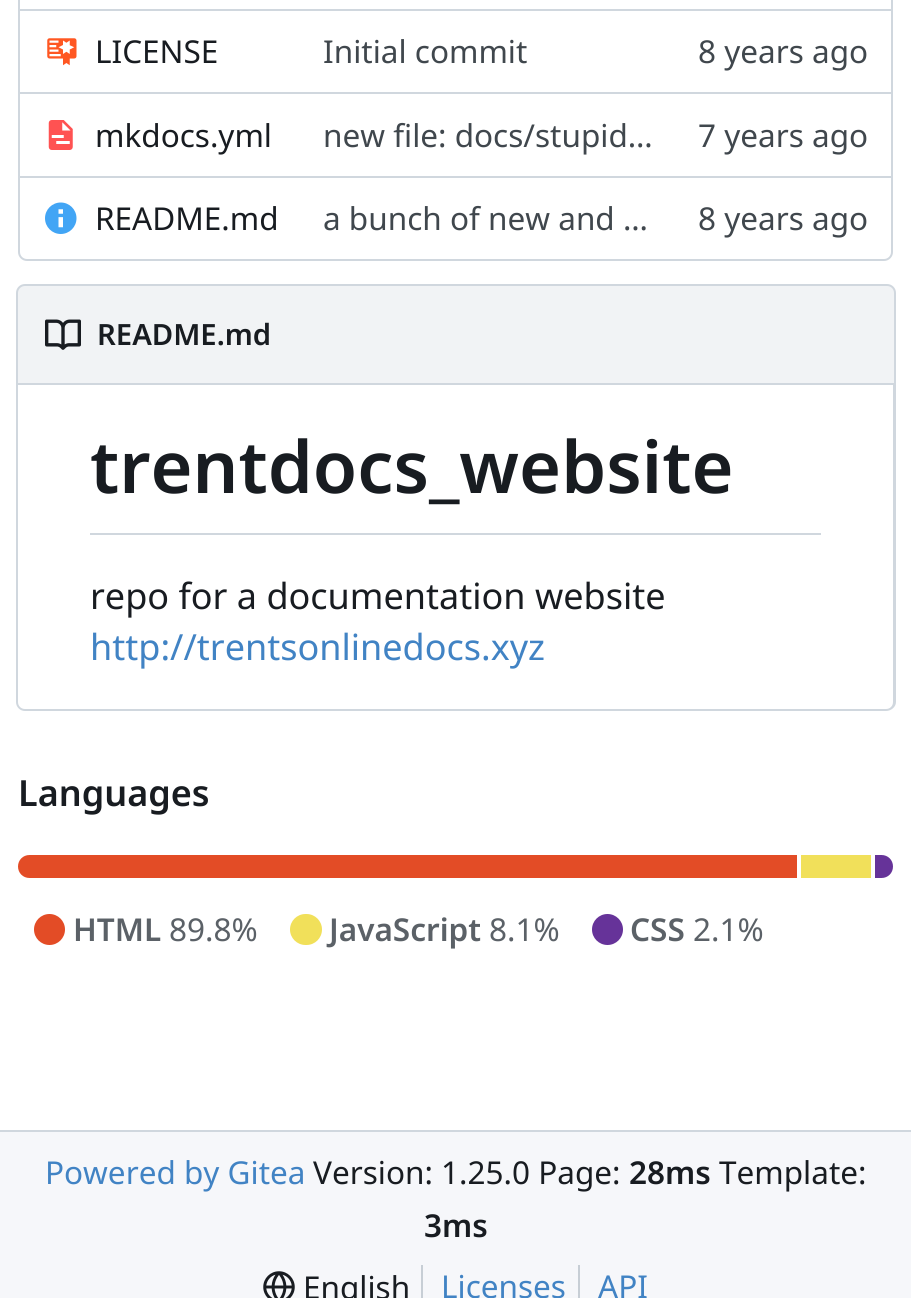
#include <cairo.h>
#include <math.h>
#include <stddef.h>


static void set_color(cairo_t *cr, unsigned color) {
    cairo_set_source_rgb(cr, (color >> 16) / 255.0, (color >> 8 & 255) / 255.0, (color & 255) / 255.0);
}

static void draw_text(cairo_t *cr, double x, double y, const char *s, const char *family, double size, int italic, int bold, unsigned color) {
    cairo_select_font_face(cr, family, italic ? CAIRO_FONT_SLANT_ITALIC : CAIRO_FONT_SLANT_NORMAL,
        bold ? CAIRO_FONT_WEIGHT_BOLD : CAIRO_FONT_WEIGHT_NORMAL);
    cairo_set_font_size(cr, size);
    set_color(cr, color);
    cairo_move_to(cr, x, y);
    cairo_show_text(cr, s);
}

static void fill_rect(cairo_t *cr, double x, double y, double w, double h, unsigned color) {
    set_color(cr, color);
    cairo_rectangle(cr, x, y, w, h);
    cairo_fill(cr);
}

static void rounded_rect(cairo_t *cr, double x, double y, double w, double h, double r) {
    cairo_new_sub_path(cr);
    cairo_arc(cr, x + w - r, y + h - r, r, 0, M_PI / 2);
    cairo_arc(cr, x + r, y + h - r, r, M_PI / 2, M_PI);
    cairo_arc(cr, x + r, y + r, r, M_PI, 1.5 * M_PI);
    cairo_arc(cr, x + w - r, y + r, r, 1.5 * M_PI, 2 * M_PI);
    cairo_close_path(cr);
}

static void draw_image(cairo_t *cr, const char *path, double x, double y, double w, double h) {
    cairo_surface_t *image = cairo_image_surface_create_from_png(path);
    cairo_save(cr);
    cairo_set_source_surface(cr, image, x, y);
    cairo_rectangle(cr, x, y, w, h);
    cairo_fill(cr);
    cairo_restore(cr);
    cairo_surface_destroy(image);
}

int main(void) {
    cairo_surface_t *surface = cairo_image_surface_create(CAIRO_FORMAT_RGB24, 911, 1298);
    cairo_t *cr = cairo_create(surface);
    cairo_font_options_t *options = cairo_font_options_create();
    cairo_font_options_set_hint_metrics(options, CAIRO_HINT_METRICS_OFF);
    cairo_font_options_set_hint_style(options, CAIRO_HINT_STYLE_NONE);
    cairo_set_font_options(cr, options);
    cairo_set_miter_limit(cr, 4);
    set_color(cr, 0xFFFFFF);
    cairo_paint(cr);
    rounded_rect(cr, 19, -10, 873, 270, 8);
    set_color(cr, 0xD0D7DE);
    cairo_stroke(cr);
    fill_rect(cr, 20, 9, 655, 2, 0xD0D7DE);
    draw_image(cr, "assets/img1.png", 47, 38, 30, 28);
    draw_text(cr, 95, 63, "LICENSE", "Noto Sans", 31.5, 0, 0, 0x181C21);
    draw_text(cr, 323, 63, "Initial commit", "Noto Sans", 31.5, 0, 0, 0x40474D);
    fill_rect(cr, 675, 9, 216, 2, 0xD0D7DE);
    draw_text(cr, 698, 63, "8 years ago", "Noto Sans", 31.5, 0, 0, 0x40474D);
    fill_rect(cr, 20, 92, 655, 2, 0xD0D7DE);
    draw_image(cr, "assets/img2.png", 48, 120, 25, 30);
    draw_text(cr, 95, 147, "mkdocs.yml", "Noto Sans", 31.5, 0, 0, 0x181C21);
    draw_text(cr, 323, 147, "new file: docs/stupid…", "Noto Sans", 31.5, 0, 0, 0x40474D);
    fill_rect(cr, 675, 92, 216, 2, 0xD0D7DE);
    draw_text(cr, 698, 147, "7 years ago", "Noto Sans", 31.5, 0, 0, 0x40474D);
    fill_rect(cr, 20, 176, 655, 2, 0xD0D7DE);
    draw_image(cr, "assets/img3.png", 45, 202, 32, 32);
    draw_text(cr, 95, 230, "README.md", "Noto Sans", 31.5, 0, 0, 0x181C21);
    draw_text(cr, 323, 230, "a bunch of new and …", "Noto Sans", 31.5, 0, 0, 0x40474D);
    fill_rect(cr, 675, 176, 216, 2, 0xD0D7DE);
    draw_text(cr, 698, 230, "8 years ago", "Noto Sans", 31.5, 0, 0, 0x40474D);
    set_color(cr, 0xF1F3F5);
    cairo_new_path(cr);
    cairo_move_to(cr, 25, 285);
    cairo_line_to(cr, 887, 285);
    cairo_curve_to(cr, 891.5, 285, 895, 288.5, 895, 293);
    cairo_line_to(cr, 895, 384);
    cairo_line_to(cr, 17, 384);
    cairo_line_to(cr, 17, 293);
    cairo_curve_to(cr, 17, 288.5, 20.5, 285, 25, 285);
    cairo_close_path(cr);
    cairo_fill_preserve(cr);
    set_color(cr, 0xD0D7DE);
    cairo_stroke(cr);
    draw_image(cr, "assets/img4.png", 45, 319, 36, 31);
    draw_text(cr, 97, 345, "README.md", "Noto Sans SemiBold", 29.25, 0, 0, 0x181C21);
    set_color(cr, 0xD0D7DE);
    cairo_set_fill_rule(cr, CAIRO_FILL_RULE_EVEN_ODD);
    cairo_new_path(cr);
    cairo_move_to(cr, 16, 385);
    cairo_line_to(cr, 896, 385);
    cairo_line_to(cr, 896, 702);
    cairo_curve_to(cr, 896, 707, 891, 711, 886, 711);
    cairo_line_to(cr, 25, 711);
    cairo_curve_to(cr, 20, 711, 16, 707, 16, 702);
    cairo_close_path(cr);
    cairo_move_to(cr, 18, 385);
    cairo_line_to(cr, 893, 385);
    cairo_line_to(cr, 893, 702);
    cairo_curve_to(cr, 893, 706, 890, 709, 886, 709);
    cairo_line_to(cr, 25, 709);
    cairo_curve_to(cr, 21, 709, 18, 706, 18, 702);
    cairo_close_path(cr);
    cairo_fill(cr);
    fill_rect(cr, 90, 533, 731, 2, 0xD0D7DE);
    draw_text(cr, 90, 493, "trentdocs_website", "Noto Sans SemiBold", 72, 0, 0, 0x181C21);
    draw_text(cr, 90, 609, "repo for a documentation website", "Noto Sans", 36, 0, 0, 0x181C21);
    draw_text(cr, 90, 660, "http://trentsonlinedocs.xyz", "Noto Sans", 36, 0, 0, 0x4183C4);
    draw_text(cr, 18, 806, "Languages", "Noto Sans SemiBold", 36, 0, 0, 0x181C21);
    set_color(cr, 0xE34C26);
    cairo_new_path(cr);
    cairo_move_to(cr, 29.5, 855);
    cairo_line_to(cr, 797, 855);
    cairo_line_to(cr, 797, 878);
    cairo_line_to(cr, 29.5, 878);
    cairo_curve_to(cr, 23, 878, 18, 873, 18, 866.5);
    cairo_curve_to(cr, 18, 860, 23, 855, 29.5, 855);
    cairo_close_path(cr);
    cairo_fill(cr);
    fill_rect(cr, 801, 855, 70, 23, 0xF1E05A);
    set_color(cr, 0x663399);
    cairo_new_path(cr);
    cairo_move_to(cr, 875, 855);
    cairo_line_to(cr, 881.5, 855);
    cairo_curve_to(cr, 888, 855, 893, 860, 893, 866.5);
    cairo_curve_to(cr, 893, 873, 888, 878, 881.5, 878);
    cairo_line_to(cr, 875, 878);
    cairo_close_path(cr);
    cairo_fill(cr);
    set_color(cr, 0xE34C26);
    cairo_arc(cr, 49.5, 929.5, 15.5, 0, 2 * M_PI);
    cairo_fill(cr);
    draw_text(cr, 73, 941, "HTML", "Noto Sans SemiBold", 31.5, 0, 0, 0x5B6167);
    draw_text(cr, 169, 941, "89.8%", "Noto Sans", 31.5, 0, 0, 0x5B6167);
    set_color(cr, 0xF1E05A);
    rounded_rect(cr, 290, 914, 32, 31, 15.5);
    cairo_fill(cr);
    draw_text(cr, 329, 941, "JavaScript", "Noto Sans SemiBold", 31.5, 0, 0, 0x5B6167);
    draw_text(cr, 489, 941, "8.1%", "Noto Sans", 31.5, 0, 0, 0x5B6167);
    set_color(cr, 0x663399);
    cairo_new_path(cr);
    cairo_arc(cr, 607.5, 929.5, 15.5, 0, 2 * M_PI);
    cairo_fill(cr);
    draw_text(cr, 630, 941, "CSS", "Noto Sans SemiBold", 31.5, 0, 0, 0x5B6167);
    draw_text(cr, 693, 941, "2.1%", "Noto Sans", 31.5, 0, 0, 0x5B6167);
    fill_rect(cr, 0, 1132, 911, 166, 0xF6F7FA);
    fill_rect(cr, 0, 1130, 911, 2, 0xD0D7DE);
    draw_text(cr, 45, 1184, "Powered by Gitea", "Noto Sans", 31.5, 0, 0, 0x4183C4);
    draw_text(cr, 313, 1184, "Version: 1.25.0 Page:", "Noto Sans", 31.5, 0, 0, 0x181C21);
    draw_text(cr, 629, 1184, "28ms", "Noto Sans SemiBold", 31.5, 0, 0, 0x181C21);
    draw_text(cr, 719, 1184, "Template:", "Noto Sans", 31.5, 0, 0, 0x181C21);
    draw_text(cr, 424, 1237, "3ms", "Noto Sans SemiBold", 31.5, 0, 0, 0x181C21);
    draw_image(cr, "assets/img5.png", 263, 1271, 32, 27);
    draw_text(cr, 303, 1299, "English", "Noto Sans", 31.5, 0, 0, 0x181C21);
    fill_rect(cr, 421, 1265, 2, 33, 0xC7CED5);
    draw_text(cr, 441, 1298, "Licenses", "Noto Sans", 31.5, 0, 0, 0x4183C4);
    fill_rect(cr, 578, 1265, 2, 33, 0xC7CED5);
    draw_text(cr, 598, 1298, "API", "Noto Sans", 31.5, 0, 0, 0x4183C4);
    cairo_surface_write_to_png(surface, "output.png");
    cairo_font_options_destroy(options);
    cairo_destroy(cr);
    cairo_surface_destroy(surface);
    return 0;
}
